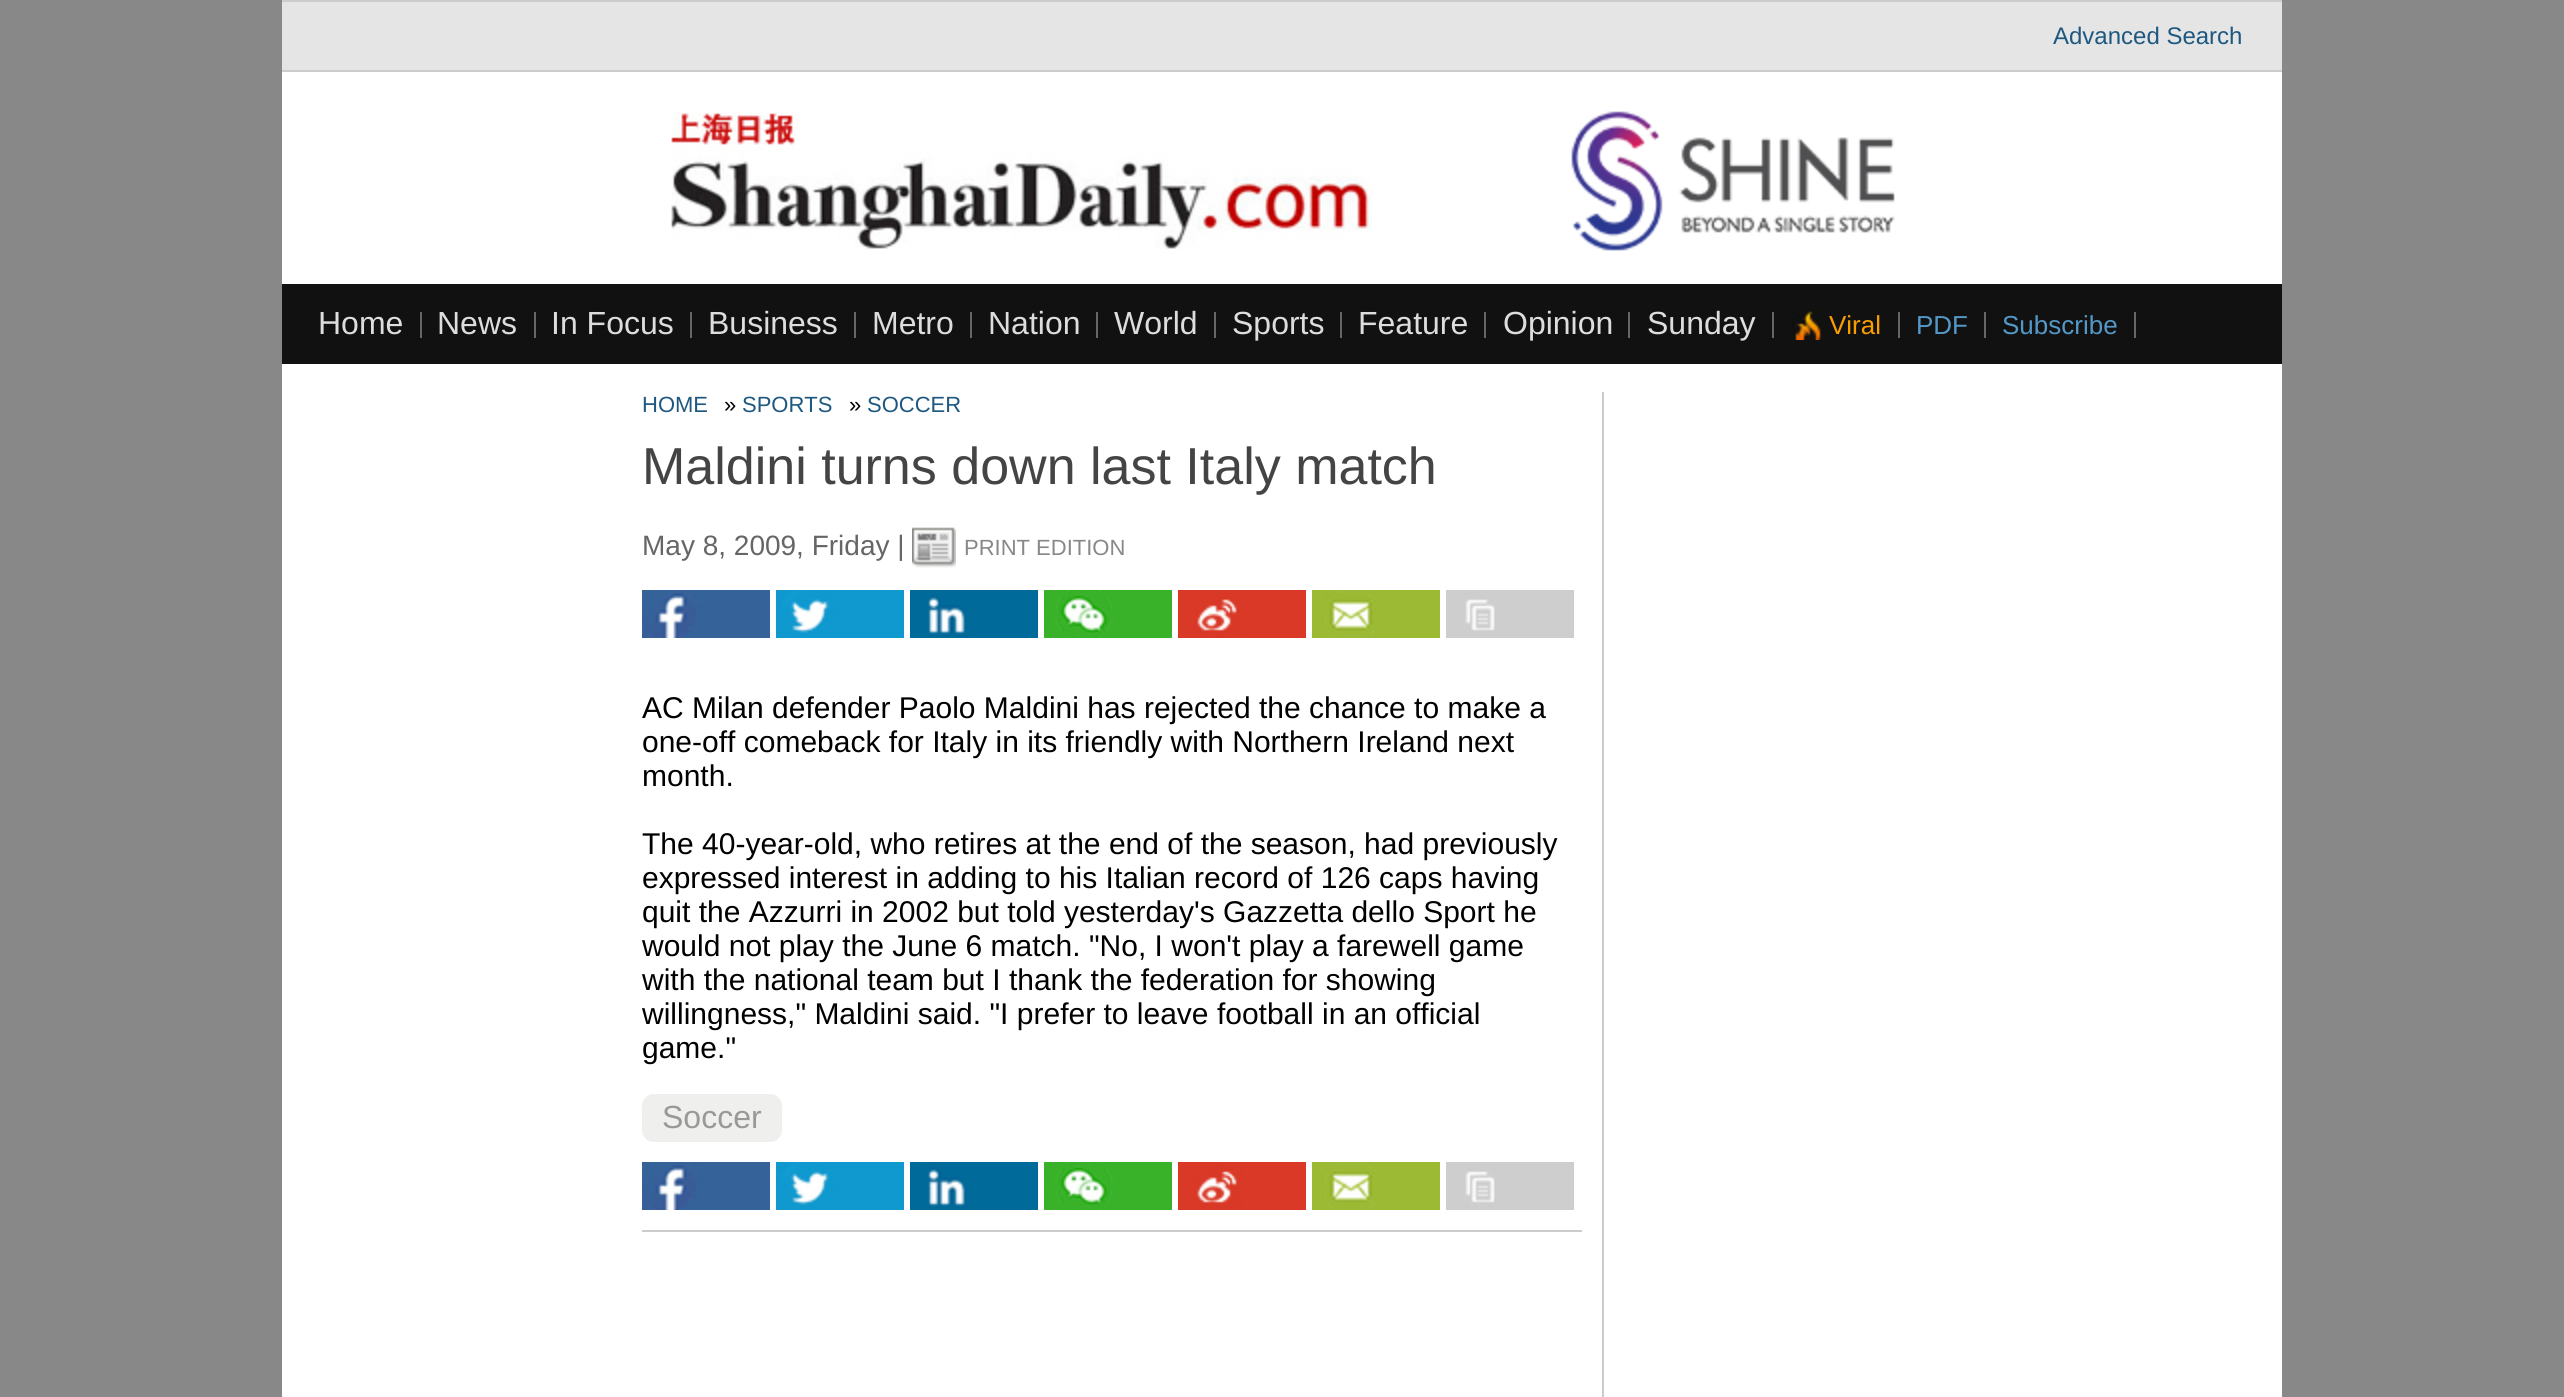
#include <cairo.h>
#include <math.h>
#include <stddef.h>


static void set_color(cairo_t *cr, unsigned color) {
    cairo_set_source_rgb(cr, (color >> 16) / 255.0, (color >> 8 & 255) / 255.0, (color & 255) / 255.0);
}

static void draw_text(cairo_t *cr, double x, double y, const char *s, const char *family, double size, int italic, int bold, unsigned color) {
    cairo_select_font_face(cr, family, italic ? CAIRO_FONT_SLANT_ITALIC : CAIRO_FONT_SLANT_NORMAL,
        bold ? CAIRO_FONT_WEIGHT_BOLD : CAIRO_FONT_WEIGHT_NORMAL);
    cairo_set_font_size(cr, size);
    set_color(cr, color);
    cairo_move_to(cr, x, y);
    cairo_show_text(cr, s);
}

static void fill_rect(cairo_t *cr, double x, double y, double w, double h, unsigned color) {
    set_color(cr, color);
    cairo_rectangle(cr, x, y, w, h);
    cairo_fill(cr);
}

static void rounded_rect(cairo_t *cr, double x, double y, double w, double h, double r) {
    cairo_new_sub_path(cr);
    cairo_arc(cr, x + w - r, y + h - r, r, 0, M_PI / 2);
    cairo_arc(cr, x + r, y + h - r, r, M_PI / 2, M_PI);
    cairo_arc(cr, x + r, y + r, r, M_PI, 1.5 * M_PI);
    cairo_arc(cr, x + w - r, y + r, r, 1.5 * M_PI, 2 * M_PI);
    cairo_close_path(cr);
}

static void draw_image(cairo_t *cr, const char *path, double x, double y, double w, double h) {
    cairo_surface_t *image = cairo_image_surface_create_from_png(path);
    cairo_save(cr);
    cairo_set_source_surface(cr, image, x, y);
    cairo_rectangle(cr, x, y, w, h);
    cairo_fill(cr);
    cairo_restore(cr);
    cairo_surface_destroy(image);
}

int main(void) {
    cairo_surface_t *surface = cairo_image_surface_create(CAIRO_FORMAT_RGB24, 2564, 1397);
    cairo_t *cr = cairo_create(surface);
    cairo_font_options_t *options = cairo_font_options_create();
    cairo_font_options_set_hint_metrics(options, CAIRO_HINT_METRICS_OFF);
    cairo_font_options_set_hint_style(options, CAIRO_HINT_STYLE_NONE);
    cairo_set_font_options(cr, options);
    cairo_set_miter_limit(cr, 4);
    set_color(cr, 0x888888);
    cairo_paint(cr);
    fill_rect(cr, 282, 72, 2000, 1325, 0xFFFFFF);
    fill_rect(cr, 282, 2, 2000, 68, 0xE5E5E5);
    fill_rect(cr, 282, 0, 2000, 2, 0xCCCCCC);
    fill_rect(cr, 282, 70, 2000, 2, 0xCCCCCC);
    draw_text(cr, 2053, 44, "Advanced Search", "Liberation Sans", 24, 0, 0, 0x1E5880);
    draw_image(cr, "assets/img1.png", 671, 112, 701, 137);
    draw_image(cr, "assets/img2.png", 1571, 111, 324, 140);
    fill_rect(cr, 282, 284, 2000, 80, 0x111111);
    fill_rect(cr, 420, 312, 2, 26, 0x666666);
    draw_text(cr, 318, 334, "Home", "Liberation Sans", 32, 0, 0, 0xDDDDDD);
    fill_rect(cr, 534, 312, 2, 26, 0x666666);
    draw_text(cr, 437, 334, "News", "Liberation Sans", 32, 0, 0, 0xDDDDDD);
    fill_rect(cr, 690, 312, 2, 26, 0x666666);
    draw_text(cr, 551, 334, "In Focus", "Liberation Sans", 32, 0, 0, 0xDDDDDD);
    fill_rect(cr, 854, 312, 2, 26, 0x666666);
    draw_text(cr, 708, 334, "Business", "Liberation Sans", 32, 0, 0, 0xDDDDDD);
    fill_rect(cr, 970, 312, 2, 26, 0x666666);
    draw_text(cr, 872, 334, "Metro", "Liberation Sans", 32, 0, 0, 0xDDDDDD);
    fill_rect(cr, 1096, 312, 2, 26, 0x666666);
    draw_text(cr, 988, 334, "Nation", "Liberation Sans", 32, 0, 0, 0xDDDDDD);
    fill_rect(cr, 1214, 312, 2, 26, 0x666666);
    draw_text(cr, 1114, 334, "World", "Liberation Sans", 32, 0, 0, 0xDDDDDD);
    fill_rect(cr, 1340, 312, 2, 26, 0x666666);
    draw_text(cr, 1232, 334, "Sports", "Liberation Sans", 32, 0, 0, 0xDDDDDD);
    fill_rect(cr, 1484, 312, 2, 26, 0x666666);
    draw_text(cr, 1358, 334, "Feature", "Liberation Sans", 32, 0, 0, 0xDDDDDD);
    fill_rect(cr, 1628, 312, 2, 26, 0x666666);
    draw_text(cr, 1503, 334, "Opinion", "Liberation Sans", 32, 0, 0, 0xDDDDDD);
    fill_rect(cr, 1772, 312, 2, 26, 0x666666);
    draw_text(cr, 1647, 334, "Sunday", "Liberation Sans", 32, 0, 0, 0xDDDDDD);
    fill_rect(cr, 1898, 312, 2, 26, 0x666666);
    draw_image(cr, "assets/img3.png", 1790, 310, 32, 30);
    draw_text(cr, 1829, 334, "Viral", "Liberation Sans", 26, 0, 0, 0xFA9E00);
    fill_rect(cr, 1984, 312, 2, 26, 0x666666);
    draw_text(cr, 1916, 334, "PDF", "Liberation Sans", 26, 0, 0, 0x5398C7);
    fill_rect(cr, 2134, 312, 2, 26, 0x666666);
    draw_text(cr, 2002, 334, "Subscribe", "Liberation Sans", 26, 0, 0, 0x5398C7);
    fill_rect(cr, 1602, 392, 2, 1005, 0xCCCCCC);
    draw_text(cr, 642, 412, "HOME", "Liberation Sans", 22, 0, 0, 0x1E5880);
    draw_text(cr, 724, 412, "»", "Liberation Sans", 22, 0, 0, 0x000000);
    draw_text(cr, 742, 412, "SPORTS", "Liberation Sans", 22, 0, 0, 0x1E5880);
    draw_text(cr, 849, 412, "»", "Liberation Sans", 22, 0, 0, 0x000000);
    draw_text(cr, 867, 412, "SOCCER", "Liberation Sans", 22, 0, 0, 0x1E5880);
    draw_text(cr, 642, 484, "Maldini turns down last Italy match", "Liberation Sans", 52, 0, 0, 0x444444);
    draw_text(cr, 642, 555, "May 8, 2009, Friday |", "Liberation Sans", 28, 0, 0, 0x666666);
    draw_image(cr, "assets/img4.png", 912, 527, 44, 41);
    draw_text(cr, 964, 555, "PRINT EDITION", "Liberation Sans", 22, 0, 0, 0x888888);
    draw_image(cr, "assets/img5.png", 642, 590, 128, 48);
    draw_image(cr, "assets/img6.png", 776, 590, 128, 48);
    draw_image(cr, "assets/img7.png", 910, 590, 128, 48);
    draw_image(cr, "assets/img8.png", 1044, 590, 128, 48);
    draw_image(cr, "assets/img9.png", 1178, 590, 128, 48);
    draw_image(cr, "assets/img10.png", 1312, 590, 128, 48);
    draw_image(cr, "assets/img11.png", 1446, 590, 128, 48);
    draw_text(cr, 642, 718, "AC Milan defender Paolo Maldini has rejected the chance to make a", "Liberation Sans", 30, 0, 0, 0x000000);
    draw_text(cr, 642, 752, "one-off comeback for Italy in its friendly with Northern Ireland next", "Liberation Sans", 30, 0, 0, 0x000000);
    draw_text(cr, 642, 786, "month.", "Liberation Sans", 30, 0, 0, 0x000000);
    draw_text(cr, 642, 854, "The 40-year-old, who retires at the end of the season, had previously", "Liberation Sans", 30, 0, 0, 0x000000);
    draw_text(cr, 642, 888, "expressed interest in adding to his Italian record of 126 caps having", "Liberation Sans", 30, 0, 0, 0x000000);
    draw_text(cr, 642, 922, "quit the Azzurri in 2002 but told yesterday's Gazzetta dello Sport he", "Liberation Sans", 30, 0, 0, 0x000000);
    draw_text(cr, 642, 956, "would not play the June 6 match. \"No, I won't play a farewell game", "Liberation Sans", 30, 0, 0, 0x000000);
    draw_text(cr, 642, 990, "with the national team but I thank the federation for showing", "Liberation Sans", 30, 0, 0, 0x000000);
    draw_text(cr, 642, 1024, "willingness,\" Maldini said. \"I prefer to leave football in an official", "Liberation Sans", 30, 0, 0, 0x000000);
    draw_text(cr, 642, 1058, "game.\"", "Liberation Sans", 30, 0, 0, 0x000000);
    set_color(cr, 0xEFEFEE);
    rounded_rect(cr, 642, 1094, 140, 48, 12);
    cairo_fill(cr);
    draw_text(cr, 662, 1128, "Soccer", "Liberation Sans", 32, 0, 0, 0x999999);
    fill_rect(cr, 642, 1230, 940, 2, 0xCCCCCC);
    draw_image(cr, "assets/img5.png", 642, 1162, 128, 48);
    draw_image(cr, "assets/img6.png", 776, 1162, 128, 48);
    draw_image(cr, "assets/img7.png", 910, 1162, 128, 48);
    draw_image(cr, "assets/img8.png", 1044, 1162, 128, 48);
    draw_image(cr, "assets/img9.png", 1178, 1162, 128, 48);
    draw_image(cr, "assets/img10.png", 1312, 1162, 128, 48);
    draw_image(cr, "assets/img11.png", 1446, 1162, 128, 48);
    cairo_surface_write_to_png(surface, "output.png");
    cairo_font_options_destroy(options);
    cairo_destroy(cr);
    cairo_surface_destroy(surface);
    return 0;
}
